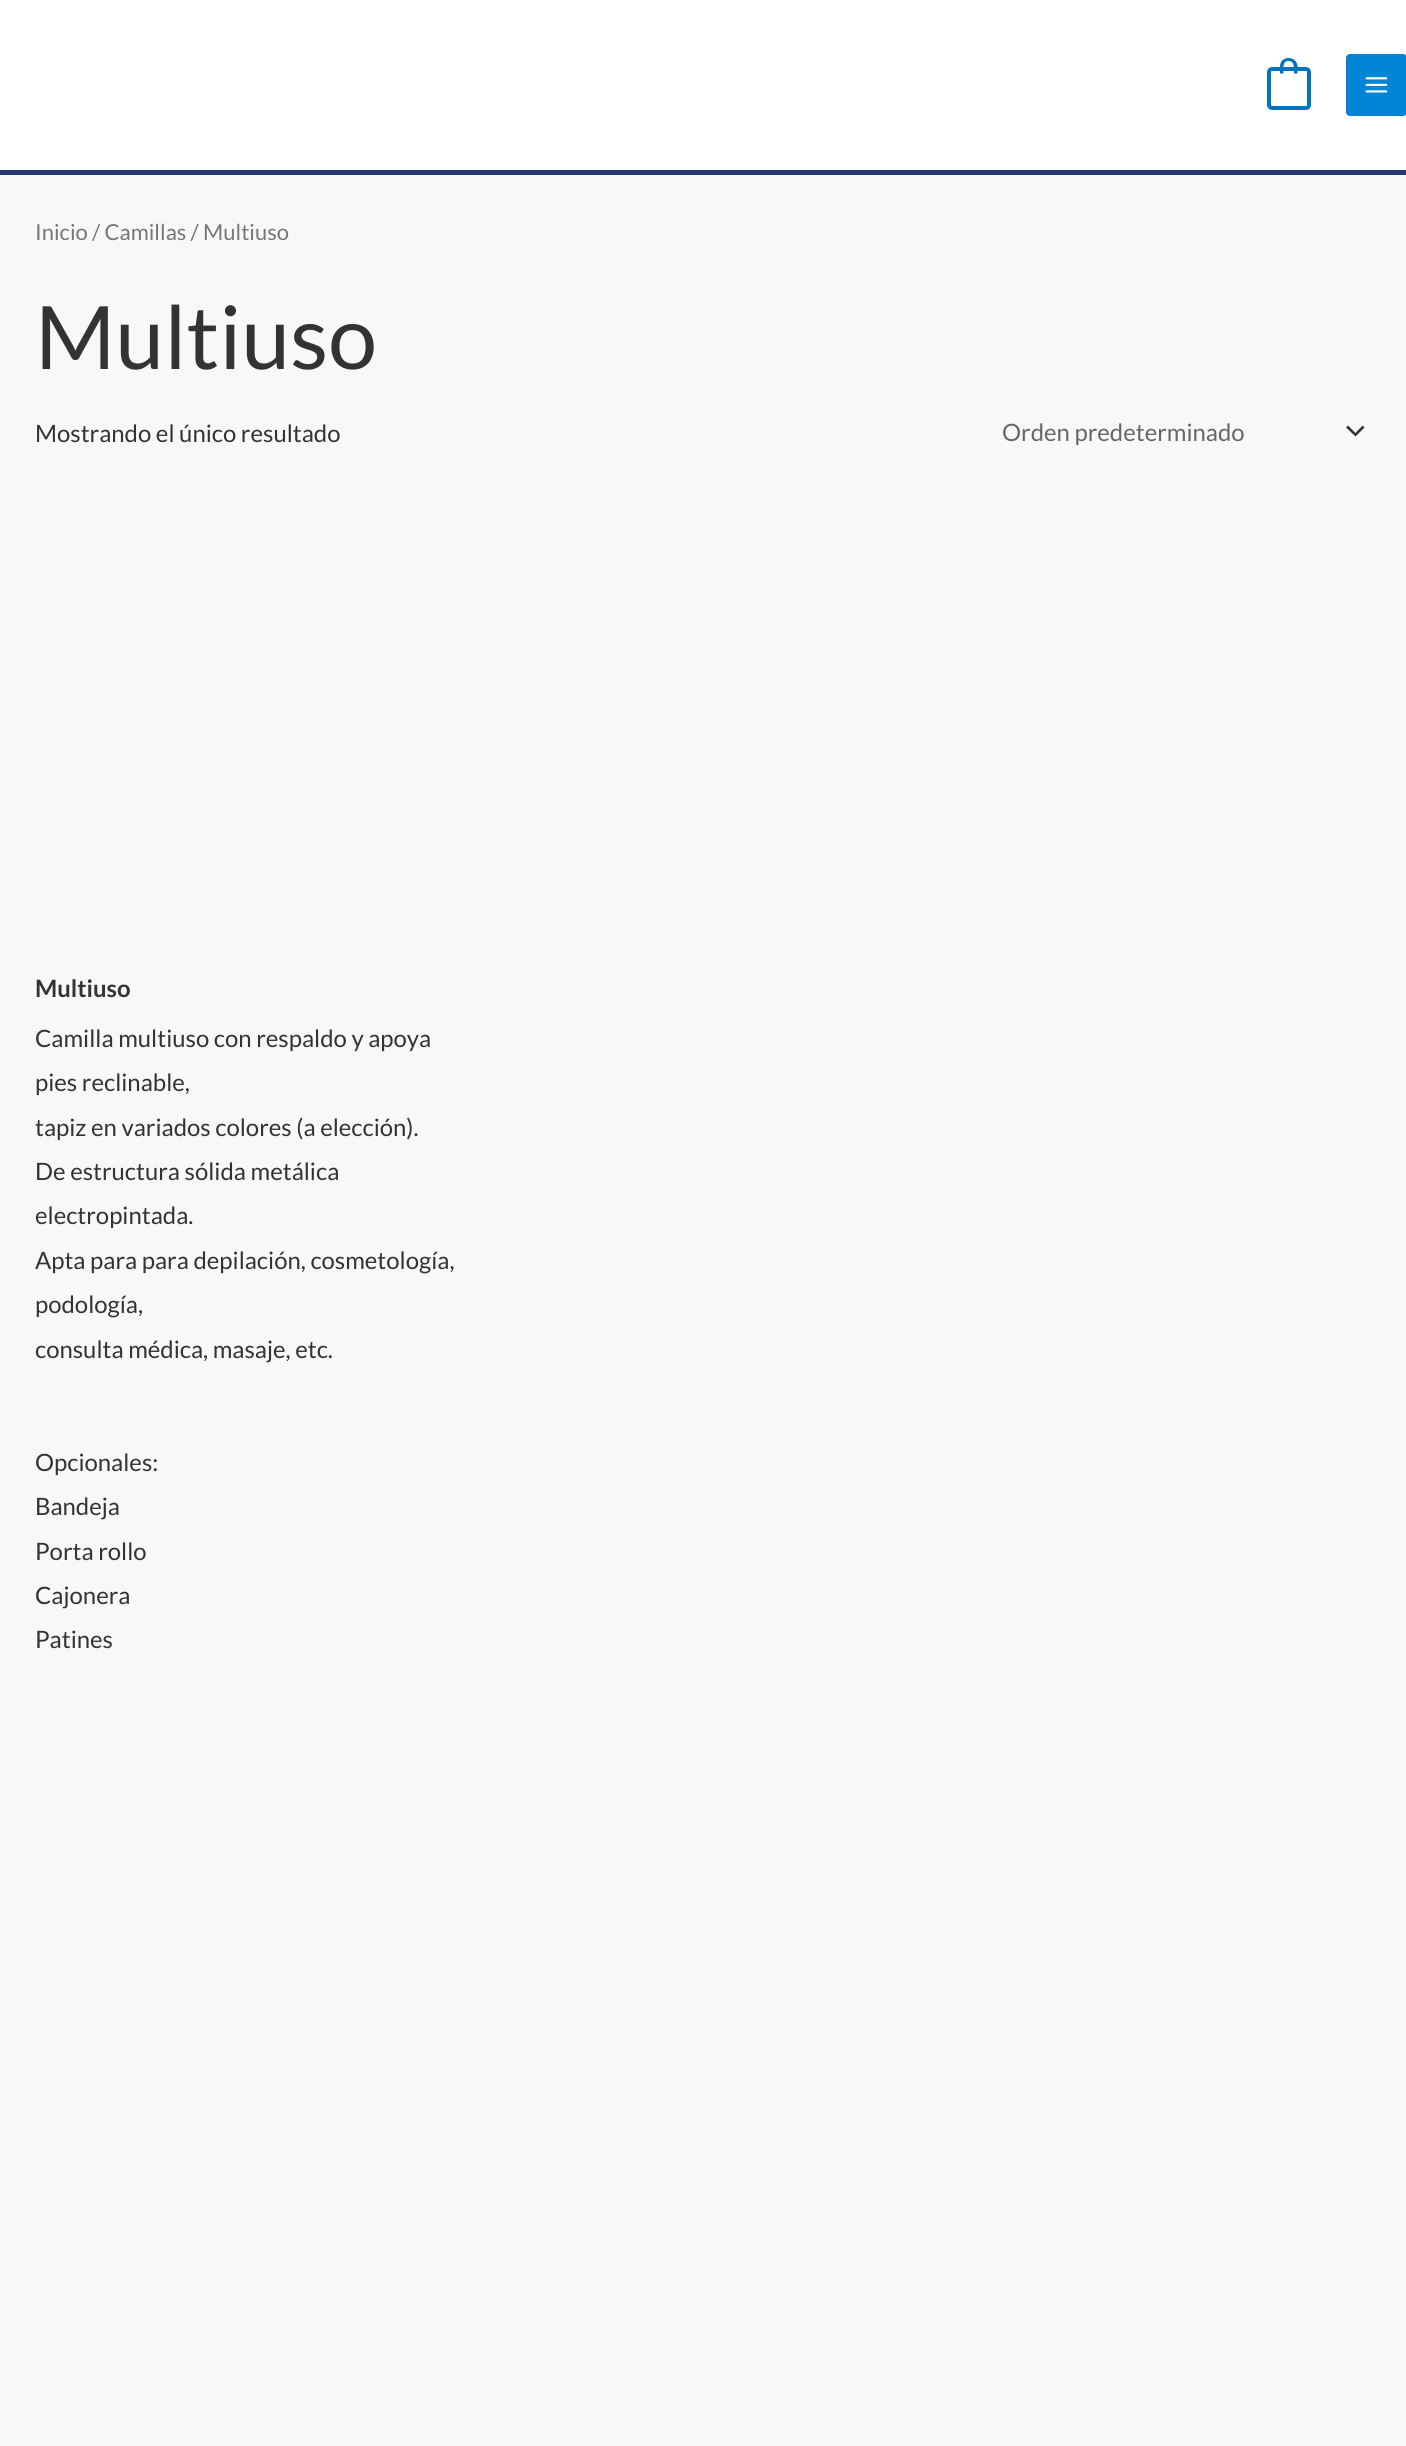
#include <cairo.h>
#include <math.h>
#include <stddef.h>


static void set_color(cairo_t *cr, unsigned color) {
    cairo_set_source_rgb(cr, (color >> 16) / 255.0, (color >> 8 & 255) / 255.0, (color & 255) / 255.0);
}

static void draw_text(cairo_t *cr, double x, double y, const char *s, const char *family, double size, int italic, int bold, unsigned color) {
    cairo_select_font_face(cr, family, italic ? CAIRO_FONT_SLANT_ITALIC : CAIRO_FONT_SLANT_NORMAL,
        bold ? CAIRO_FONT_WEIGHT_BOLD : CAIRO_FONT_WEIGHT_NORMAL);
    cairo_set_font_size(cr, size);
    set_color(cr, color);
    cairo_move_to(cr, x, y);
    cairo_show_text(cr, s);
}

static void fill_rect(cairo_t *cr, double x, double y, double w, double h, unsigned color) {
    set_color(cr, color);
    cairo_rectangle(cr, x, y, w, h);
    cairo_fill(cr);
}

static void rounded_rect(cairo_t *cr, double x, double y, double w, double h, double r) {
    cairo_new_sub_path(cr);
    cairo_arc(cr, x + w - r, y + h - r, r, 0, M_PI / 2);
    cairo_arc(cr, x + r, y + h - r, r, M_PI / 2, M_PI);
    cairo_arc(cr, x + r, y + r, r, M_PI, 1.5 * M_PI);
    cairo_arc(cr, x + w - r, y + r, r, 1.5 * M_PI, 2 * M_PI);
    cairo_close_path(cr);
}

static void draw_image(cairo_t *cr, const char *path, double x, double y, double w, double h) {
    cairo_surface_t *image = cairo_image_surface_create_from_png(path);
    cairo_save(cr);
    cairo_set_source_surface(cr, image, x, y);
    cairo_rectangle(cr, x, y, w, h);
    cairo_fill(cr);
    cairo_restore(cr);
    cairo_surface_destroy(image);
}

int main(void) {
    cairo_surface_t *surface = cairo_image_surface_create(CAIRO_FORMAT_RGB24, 1406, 2446);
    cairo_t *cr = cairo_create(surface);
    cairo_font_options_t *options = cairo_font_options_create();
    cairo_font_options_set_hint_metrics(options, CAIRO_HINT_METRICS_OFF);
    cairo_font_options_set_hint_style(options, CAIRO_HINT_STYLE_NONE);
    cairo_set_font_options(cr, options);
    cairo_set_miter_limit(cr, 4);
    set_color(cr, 0xF8F8F8);
    cairo_paint(cr);
    fill_rect(cr, 0, 0, 1406, 170, 0xFFFFFF);
    fill_rect(cr, 0, 170, 1406, 5, 0x243673);
    rounded_rect(cr, 1269, 69, 40, 39, 3);
    set_color(cr, 0x0274BE);
    cairo_set_line_width(cr, 4);
    cairo_stroke(cr);
    cairo_set_fill_rule(cr, CAIRO_FILL_RULE_EVEN_ODD);
    cairo_new_path(cr);
    cairo_move_to(cr, 1288.5, 58);
    cairo_curve_to(cr, 1293.5, 58, 1297.5, 61.5, 1297.5, 66.5);
    cairo_line_to(cr, 1297.5, 73.5);
    cairo_line_to(cr, 1280, 73.5);
    cairo_line_to(cr, 1280, 66.5);
    cairo_curve_to(cr, 1280, 61.5, 1283.5, 58, 1288.5, 58);
    cairo_close_path(cr);
    cairo_move_to(cr, 1288.5, 61);
    cairo_curve_to(cr, 1295, 61, 1294, 69, 1294, 73.5);
    cairo_line_to(cr, 1283.5, 73.5);
    cairo_curve_to(cr, 1283.5, 69, 1282, 61, 1288.5, 61);
    cairo_close_path(cr);
    cairo_fill(cr);
    set_color(cr, 0x0084D6);
    rounded_rect(cr, 1346, 54, 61, 62, 4);
    cairo_fill(cr);
    draw_image(cr, "assets/img1.png", 1365, 77, 23, 16);
    draw_text(cr, 35, 240, "Inicio / Camillas / Multiuso", "Lato", 22, 0, 0, 0x777777);
    draw_text(cr, 35, 369, "Multiuso", "Lato", 87.5, 0, 0, 0x333333);
    draw_text(cr, 35, 442, "Mostrando el único resultado", "Lato", 23.9, 0, 0, 0x333333);
    cairo_set_fill_rule(cr, CAIRO_FILL_RULE_WINDING);
    cairo_new_path(cr);
    cairo_move_to(cr, 1346, 427.5);
    cairo_line_to(cr, 1355.5, 436.5);
    cairo_line_to(cr, 1364.5, 427.5);
    cairo_line_to(cr, 1362.5, 425.5);
    cairo_line_to(cr, 1355.5, 433);
    cairo_line_to(cr, 1348, 425.5);
    cairo_close_path(cr);
    cairo_fill(cr);
    draw_text(cr, 1002, 441, "Orden predeterminado", "Lato", 23.9, 0, 0, 0x666666);
    draw_text(cr, 35, 997, "Multiuso", "Lato", 23.9, 0, 1, 0x333333);
    draw_text(cr, 35, 1047, "Camilla multiuso con respaldo y apoya", "Lato", 23.9, 0, 0, 0x333333);
    draw_text(cr, 35, 1091, "pies reclinable,", "Lato", 23.9, 0, 0, 0x333333);
    draw_text(cr, 35, 1136, "tapiz en variados colores (a elección).", "Lato", 23.9, 0, 0, 0x333333);
    draw_text(cr, 35, 1180, "De estructura sólida metálica", "Lato", 23.9, 0, 0, 0x333333);
    draw_text(cr, 35, 1224, "electropintada.", "Lato", 23.9, 0, 0, 0x333333);
    draw_text(cr, 35, 1269, "Apta para para depilación, cosmetología,", "Lato", 23.9, 0, 0, 0x333333);
    draw_text(cr, 35, 1313, "podología,", "Lato", 23.9, 0, 0, 0x333333);
    draw_text(cr, 35, 1358, "consulta médica, masaje, etc.", "Lato", 23.9, 0, 0, 0x333333);
    draw_text(cr, 35, 1471, "Opcionales:", "Lato", 23.9, 0, 0, 0x333333);
    draw_text(cr, 35, 1515, "Bandeja", "Lato", 23.9, 0, 0, 0x333333);
    draw_text(cr, 35, 1560, "Porta rollo", "Lato", 23.9, 0, 0, 0x333333);
    draw_text(cr, 35, 1604, "Cajonera", "Lato", 23.9, 0, 0, 0x333333);
    draw_text(cr, 35, 1648, "Patines", "Lato", 23.9, 0, 0, 0x333333);
    cairo_surface_write_to_png(surface, "output.png");
    cairo_font_options_destroy(options);
    cairo_destroy(cr);
    cairo_surface_destroy(surface);
    return 0;
}
